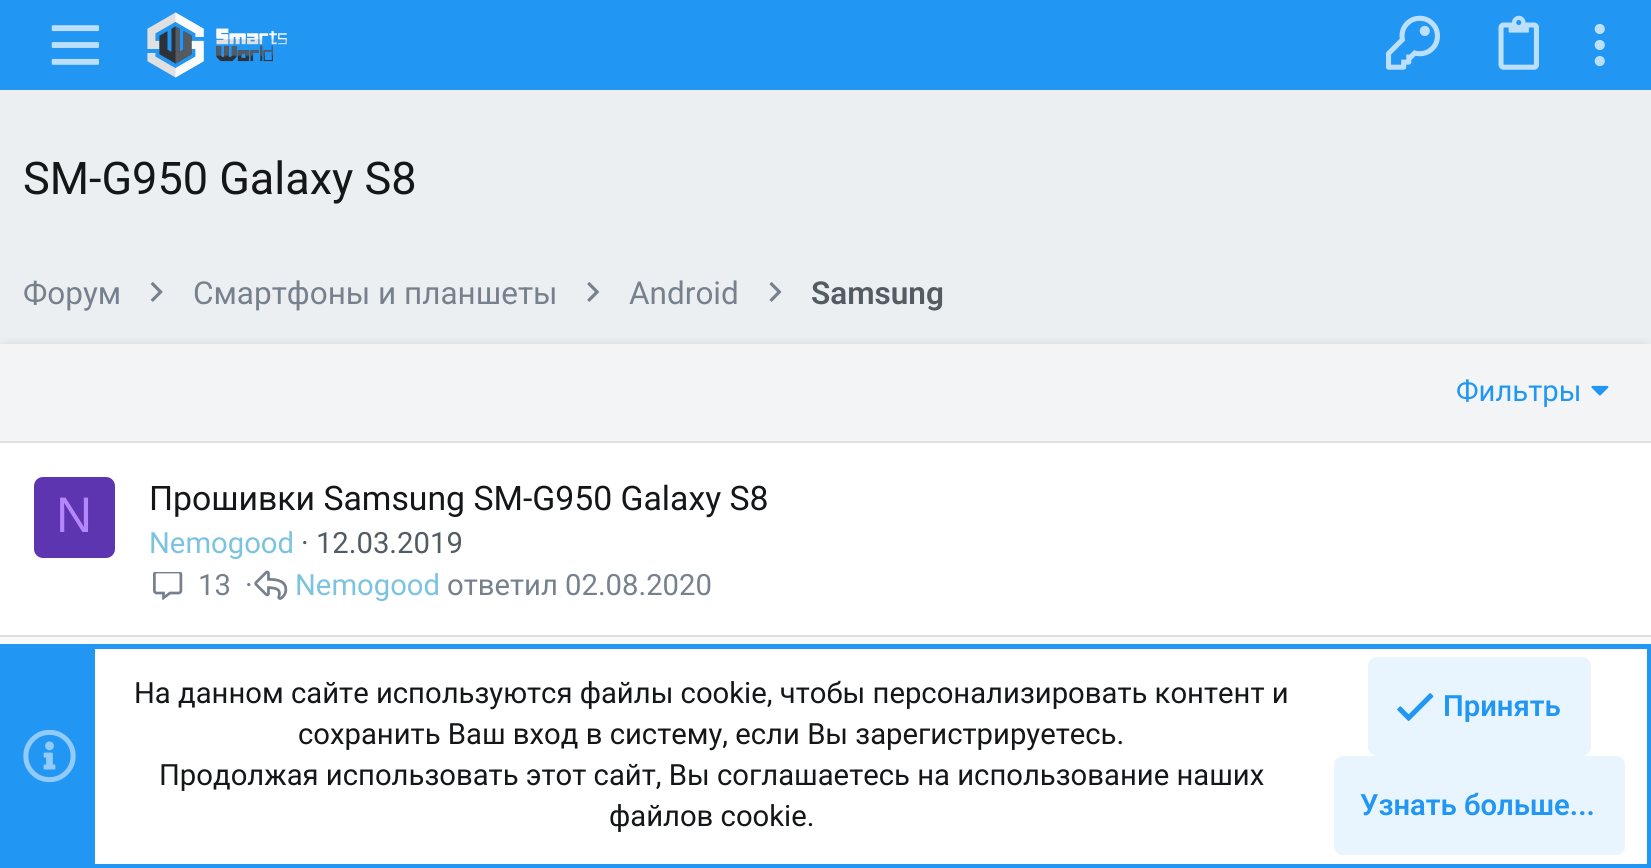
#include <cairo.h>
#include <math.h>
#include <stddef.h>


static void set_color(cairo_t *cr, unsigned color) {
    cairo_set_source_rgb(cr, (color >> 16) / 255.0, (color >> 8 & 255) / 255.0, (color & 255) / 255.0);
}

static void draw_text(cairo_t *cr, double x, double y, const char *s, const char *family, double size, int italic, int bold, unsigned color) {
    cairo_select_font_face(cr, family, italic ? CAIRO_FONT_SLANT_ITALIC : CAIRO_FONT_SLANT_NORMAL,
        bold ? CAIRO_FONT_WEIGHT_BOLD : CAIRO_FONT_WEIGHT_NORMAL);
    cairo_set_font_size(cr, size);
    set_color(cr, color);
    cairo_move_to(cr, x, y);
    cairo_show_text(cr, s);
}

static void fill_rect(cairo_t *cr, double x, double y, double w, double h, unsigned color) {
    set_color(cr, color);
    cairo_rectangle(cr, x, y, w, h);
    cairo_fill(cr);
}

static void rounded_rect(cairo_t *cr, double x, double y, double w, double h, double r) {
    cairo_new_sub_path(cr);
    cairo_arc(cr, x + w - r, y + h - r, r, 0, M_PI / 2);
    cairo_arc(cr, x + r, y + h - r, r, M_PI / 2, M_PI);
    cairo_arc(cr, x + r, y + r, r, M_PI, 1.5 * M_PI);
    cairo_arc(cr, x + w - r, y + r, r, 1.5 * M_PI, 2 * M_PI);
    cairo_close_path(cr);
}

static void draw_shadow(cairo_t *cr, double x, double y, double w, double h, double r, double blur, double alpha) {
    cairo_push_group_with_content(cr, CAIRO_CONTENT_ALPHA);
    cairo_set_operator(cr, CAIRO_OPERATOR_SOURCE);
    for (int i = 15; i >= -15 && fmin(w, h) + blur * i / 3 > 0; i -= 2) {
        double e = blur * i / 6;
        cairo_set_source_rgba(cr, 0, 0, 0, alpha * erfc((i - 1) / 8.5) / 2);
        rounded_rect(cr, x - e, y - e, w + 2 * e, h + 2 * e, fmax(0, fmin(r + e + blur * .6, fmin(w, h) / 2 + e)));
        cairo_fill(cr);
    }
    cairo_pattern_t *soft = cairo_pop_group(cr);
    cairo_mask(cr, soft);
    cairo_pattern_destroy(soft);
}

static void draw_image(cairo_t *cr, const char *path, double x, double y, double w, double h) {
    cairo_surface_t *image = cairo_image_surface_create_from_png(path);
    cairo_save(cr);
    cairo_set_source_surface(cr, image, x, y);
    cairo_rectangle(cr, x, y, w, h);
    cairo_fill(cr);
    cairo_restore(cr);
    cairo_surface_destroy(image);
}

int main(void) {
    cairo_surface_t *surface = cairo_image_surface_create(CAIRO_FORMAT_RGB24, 1651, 868);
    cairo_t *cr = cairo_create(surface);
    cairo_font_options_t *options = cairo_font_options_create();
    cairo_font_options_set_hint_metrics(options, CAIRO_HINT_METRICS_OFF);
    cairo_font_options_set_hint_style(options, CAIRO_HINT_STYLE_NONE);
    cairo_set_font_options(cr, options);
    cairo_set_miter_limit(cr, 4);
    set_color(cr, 0xECEFF1);
    cairo_paint(cr);
    fill_rect(cr, 0, 0, 1651, 90, 0x2196F3);
    draw_image(cr, "assets/img1.png", 51, 25, 48, 40);
    draw_image(cr, "assets/img2.png", 147, 12, 140, 66);
    draw_image(cr, "assets/img3.png", 1386, 15, 54, 55);
    draw_image(cr, "assets/img4.png", 1498, 15, 41, 55);
    draw_image(cr, "assets/img5.png", 1594, 23, 11, 44);
    draw_text(cr, 23, 194, "SM-G950 Galaxy S8", "Roboto", 45, 0, 0, 0x141618);
    draw_text(cr, 23, 304, "Форум", "Roboto", 31.5, 0, 0, 0x76818D);
    draw_image(cr, "assets/img6.png", 150, 282, 13, 20);
    draw_text(cr, 193, 304, "Смартфоны и планшеты", "Roboto", 31.5, 0, 0, 0x76818D);
    draw_image(cr, "assets/img7.png", 587, 282, 12, 20);
    draw_text(cr, 629, 304, "Android", "Roboto", 31.5, 0, 0, 0x76818D);
    draw_image(cr, "assets/img8.png", 769, 282, 13, 20);
    draw_text(cr, 811, 304, "Samsung", "Roboto SemiBold", 31.5, 0, 0, 0x535B63);
    set_color(cr, 0x000000);
    draw_shadow(cr, 0, 347, 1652, 483, 9, 5.5, 0.2);
    fill_rect(cr, 0, 443, 1651, 192, 0xFFFFFF);
    fill_rect(cr, 0, 344, 1651, 97, 0xF3F4F5);
    draw_text(cr, 1456, 401, "Фильтры", "Roboto", 29.25, 0, 0, 0x2196F3);
    draw_image(cr, "assets/img9.png", 1591, 385, 18, 11);
    fill_rect(cr, 0, 441, 1651, 2, 0xE0E0E0);
    set_color(cr, 0x5E35B1);
    rounded_rect(cr, 34, 477, 81, 81, 9);
    cairo_fill(cr);
    draw_text(cr, 56, 532, "N", "Liberation Sans", 50, 0, 0, 0xB388FF);
    draw_text(cr, 149, 510, "Прошивки Samsung SM-G950 Galaxy S8", "Roboto", 33.75, 0, 0, 0x141618);
    draw_text(cr, 149, 553, "Nemogood", "Roboto", 29.25, 0, 0, 0x7CC3E0);
    draw_text(cr, 301, 553, "· 12.03.2019", "Roboto", 29.25, 0, 0, 0x535B63);
    draw_image(cr, "assets/img10.png", 153, 572, 30, 28);
    draw_text(cr, 198, 595, "13", "Roboto", 29.25, 0, 0, 0x76818D);
    draw_text(cr, 245, 595, "·", "Roboto", 29.25, 0, 0, 0x76818D);
    draw_image(cr, "assets/img11.png", 254, 570, 34, 30);
    draw_text(cr, 295, 595, "Nemogood", "Roboto", 29.25, 0, 0, 0x7CC3E0);
    draw_text(cr, 447, 595, "ответил", "Roboto", 29.25, 0, 0, 0x76818D);
    draw_text(cr, 565, 595, "02.08.2020", "Roboto", 29.25, 0, 0, 0x76818D);
    fill_rect(cr, 0, 637, 1651, 7, 0xF9FAFA);
    fill_rect(cr, 0, 635, 1651, 2, 0xE0E0E0);
    fill_rect(cr, 95, 649, 1552, 215, 0xFFFFFF);
    cairo_rectangle(cr, 2.5, 646.5, 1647, 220);
    set_color(cr, 0x2196F3);
    cairo_set_line_width(cr, 5);
    cairo_stroke(cr);
    fill_rect(cr, 5, 649, 90, 215, 0x2196F3);
    draw_image(cr, "assets/img12.png", 23, 729, 53, 54);
    draw_text(cr, 134, 703, "На данном сайте используются файлы cookie, чтобы персонализировать контент и", "Roboto", 29.25, 0, 0, 0x141618);
    draw_text(cr, 298, 744, "сохранить Ваш вход в систему, если Вы зарегистрируетесь.", "Roboto", 29.25, 0, 0, 0x141618);
    draw_text(cr, 159, 785, "Продолжая использовать этот сайт, Вы соглашаетесь на использование наших", "Roboto", 29.25, 0, 0, 0x141618);
    draw_text(cr, 609, 826, "файлов cookie.", "Roboto", 29.25, 0, 0, 0x141618);
    set_color(cr, 0xE9F5FE);
    rounded_rect(cr, 1368, 657, 223, 99, 9);
    cairo_fill(cr);
    draw_image(cr, "assets/img13.png", 1397, 693, 37, 28);
    draw_text(cr, 1443, 716, "Принять", "Roboto SemiBold", 29.25, 0, 0, 0x2196F3);
    set_color(cr, 0xE9F5FE);
    rounded_rect(cr, 1334, 756, 291, 99, 9);
    cairo_fill(cr);
    draw_text(cr, 1360, 815, "Узнать больше...", "Roboto SemiBold", 29.25, 0, 0, 0x2196F3);
    cairo_surface_write_to_png(surface, "output.png");
    cairo_font_options_destroy(options);
    cairo_destroy(cr);
    cairo_surface_destroy(surface);
    return 0;
}
